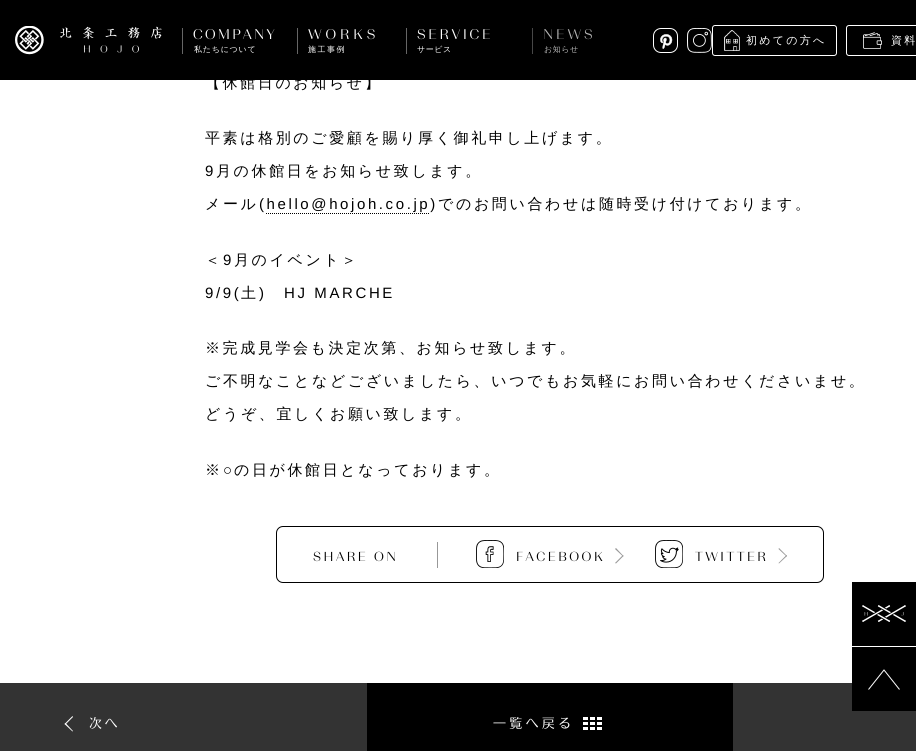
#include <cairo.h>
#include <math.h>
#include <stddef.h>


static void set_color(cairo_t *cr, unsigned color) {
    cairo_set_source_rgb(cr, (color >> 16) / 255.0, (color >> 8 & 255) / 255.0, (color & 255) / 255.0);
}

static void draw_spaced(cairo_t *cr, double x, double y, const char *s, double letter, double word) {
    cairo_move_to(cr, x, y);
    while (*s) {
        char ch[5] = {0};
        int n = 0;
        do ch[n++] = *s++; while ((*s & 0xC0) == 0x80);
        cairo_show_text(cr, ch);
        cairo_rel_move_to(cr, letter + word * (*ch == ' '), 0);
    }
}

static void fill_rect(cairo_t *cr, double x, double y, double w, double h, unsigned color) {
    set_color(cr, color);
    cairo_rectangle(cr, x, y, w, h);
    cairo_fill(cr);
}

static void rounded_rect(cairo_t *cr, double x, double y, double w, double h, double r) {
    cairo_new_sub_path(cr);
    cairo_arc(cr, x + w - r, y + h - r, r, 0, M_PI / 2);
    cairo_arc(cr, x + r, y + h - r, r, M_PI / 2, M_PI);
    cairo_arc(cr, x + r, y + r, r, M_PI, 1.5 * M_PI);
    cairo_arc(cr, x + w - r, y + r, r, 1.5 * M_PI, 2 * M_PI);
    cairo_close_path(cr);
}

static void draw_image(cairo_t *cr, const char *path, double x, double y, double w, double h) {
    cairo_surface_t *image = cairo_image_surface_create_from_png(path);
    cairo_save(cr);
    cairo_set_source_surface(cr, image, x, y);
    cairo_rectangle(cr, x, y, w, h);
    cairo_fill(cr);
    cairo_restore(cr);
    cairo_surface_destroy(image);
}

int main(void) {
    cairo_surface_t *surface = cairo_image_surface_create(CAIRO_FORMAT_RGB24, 916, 751);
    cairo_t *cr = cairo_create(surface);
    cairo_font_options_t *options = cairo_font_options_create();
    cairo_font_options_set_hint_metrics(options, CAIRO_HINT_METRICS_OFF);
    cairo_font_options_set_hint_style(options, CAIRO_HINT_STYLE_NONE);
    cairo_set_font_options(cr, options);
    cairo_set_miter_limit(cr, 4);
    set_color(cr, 0xFFFFFF);
    cairo_paint(cr);
    fill_rect(cr, 0, 0, 916, 80, 0x000000);
    draw_image(cr, "assets/img1.png", 15, 26, 147, 29);
    fill_rect(cr, 182, 28, 1, 26, 0x666666);
    cairo_select_font_face(cr, "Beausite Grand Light", CAIRO_FONT_SLANT_NORMAL, CAIRO_FONT_WEIGHT_NORMAL);
    cairo_set_font_size(cr, 14);
    set_color(cr, 0xFFFFFF);
    draw_spaced(cr, 193, 39, "COMPANY", 2.25, 0);
    cairo_select_font_face(cr, "WenQuanYi Zen Hei Medium", CAIRO_FONT_SLANT_NORMAL, CAIRO_FONT_WEIGHT_NORMAL);
    cairo_set_font_size(cr, 8);
    draw_spaced(cr, 194, 52, "私たちについて", 0.75, 0);
    fill_rect(cr, 297, 28, 1, 26, 0x666666);
    cairo_select_font_face(cr, "Beausite Grand Light", CAIRO_FONT_SLANT_NORMAL, CAIRO_FONT_WEIGHT_NORMAL);
    cairo_set_font_size(cr, 14);
    set_color(cr, 0xFFFFFF);
    draw_spaced(cr, 308, 39, "WORKS", 4, 0);
    cairo_select_font_face(cr, "WenQuanYi Zen Hei Medium", CAIRO_FONT_SLANT_NORMAL, CAIRO_FONT_WEIGHT_NORMAL);
    cairo_set_font_size(cr, 8);
    draw_spaced(cr, 308, 52, "施工事例", 1.5, 0);
    fill_rect(cr, 406, 28, 1, 26, 0x666666);
    cairo_select_font_face(cr, "Beausite Grand Light", CAIRO_FONT_SLANT_NORMAL, CAIRO_FONT_WEIGHT_NORMAL);
    cairo_set_font_size(cr, 14);
    set_color(cr, 0xFFFFFF);
    draw_spaced(cr, 417, 39, "SERVICE", 2.75, 0);
    cairo_select_font_face(cr, "WenQuanYi Zen Hei Medium", CAIRO_FONT_SLANT_NORMAL, CAIRO_FONT_WEIGHT_NORMAL);
    cairo_set_font_size(cr, 8);
    draw_spaced(cr, 417, 52, "サービス", 0.5, 0);
    fill_rect(cr, 532, 28, 1, 26, 0x474747);
    cairo_select_font_face(cr, "Beausite Grand Light", CAIRO_FONT_SLANT_NORMAL, CAIRO_FONT_WEIGHT_NORMAL);
    cairo_set_font_size(cr, 14);
    set_color(cr, 0xB3B3B3);
    draw_spaced(cr, 543, 39, "NEWS", 3, 0);
    cairo_select_font_face(cr, "WenQuanYi Zen Hei Medium", CAIRO_FONT_SLANT_NORMAL, CAIRO_FONT_WEIGHT_NORMAL);
    cairo_set_font_size(cr, 8);
    draw_spaced(cr, 544, 52, "お知らせ", 0.5, 0);
    draw_image(cr, "assets/img2.png", 653, 28, 25, 25);
    draw_image(cr, "assets/img3.png", 687, 28, 25, 25);
    draw_image(cr, "assets/img4.png", 724, 30, 16, 21);
    rounded_rect(cr, 712.5, 25.5, 124, 30, 2.5);
    set_color(cr, 0xFFFFFF);
    cairo_set_line_width(cr, 1);
    cairo_stroke(cr);
    cairo_set_font_size(cr, 11);
    draw_spaced(cr, 746, 44, "初めての方へ", 2.25, 0);
    draw_image(cr, "assets/img5.png", 863, 32, 19, 17);
    rounded_rect(cr, 846.5, 25.5, 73, 30, 2.5);
    cairo_stroke(cr);
    draw_spaced(cr, 891, 44, "資料", 2.25, 0);
    cairo_set_font_size(cr, 15);
    set_color(cr, 0x000000);
    draw_spaced(cr, 205, 88, "【休館日のお知らせ】", 2.6, 0);
    draw_spaced(cr, 205, 143, "平素は格別のご愛顧を賜り厚く御礼申し上げます。", 2.6, 0);
    cairo_select_font_face(cr, "Liberation Sans", CAIRO_FONT_SLANT_NORMAL, CAIRO_FONT_WEIGHT_NORMAL);
    draw_spaced(cr, 205, 176, "9", 2.6, 0);
    cairo_select_font_face(cr, "WenQuanYi Zen Hei Medium", CAIRO_FONT_SLANT_NORMAL, CAIRO_FONT_WEIGHT_NORMAL);
    draw_spaced(cr, 216, 176, "月の休館日をお知らせ致します。", 2.6, 0);
    draw_spaced(cr, 205, 209, "メール", 2.6, 0);
    cairo_select_font_face(cr, "Liberation Sans", CAIRO_FONT_SLANT_NORMAL, CAIRO_FONT_WEIGHT_NORMAL);
    draw_spaced(cr, 259, 209, "(hello@hojoh.co.jp)", 2.6, 0);
    cairo_new_path(cr);
    cairo_move_to(cr, 266, 213.5);
    cairo_line_to(cr, 430, 213.5);
    cairo_set_dash(cr, (double[]){1, 1}, 2, 0);
    cairo_stroke(cr);
    cairo_select_font_face(cr, "WenQuanYi Zen Hei Medium", CAIRO_FONT_SLANT_NORMAL, CAIRO_FONT_WEIGHT_NORMAL);
    draw_spaced(cr, 438, 209, "でのお問い合わせは随時受け付けております。", 2.6, 0);
    draw_spaced(cr, 205, 265, "＜", 2.6, 0);
    cairo_select_font_face(cr, "Liberation Sans", CAIRO_FONT_SLANT_NORMAL, CAIRO_FONT_WEIGHT_NORMAL);
    draw_spaced(cr, 223, 265, "9", 2.6, 0);
    cairo_select_font_face(cr, "WenQuanYi Zen Hei Medium", CAIRO_FONT_SLANT_NORMAL, CAIRO_FONT_WEIGHT_NORMAL);
    draw_spaced(cr, 234, 265, "月のイベント＞", 2.6, 0);
    cairo_select_font_face(cr, "Liberation Sans", CAIRO_FONT_SLANT_NORMAL, CAIRO_FONT_WEIGHT_NORMAL);
    draw_spaced(cr, 205, 298, "9/9(", 2.6, 0);
    cairo_select_font_face(cr, "WenQuanYi Zen Hei Medium", CAIRO_FONT_SLANT_NORMAL, CAIRO_FONT_WEIGHT_NORMAL);
    draw_spaced(cr, 241, 298, "土", 2.6, 0);
    cairo_select_font_face(cr, "Liberation Sans", CAIRO_FONT_SLANT_NORMAL, CAIRO_FONT_WEIGHT_NORMAL);
    draw_spaced(cr, 259, 298, ")", 2.6, 0);
    draw_spaced(cr, 284, 298, "HJ MARCHE", 2.6, 0);
    cairo_select_font_face(cr, "WenQuanYi Zen Hei Medium", CAIRO_FONT_SLANT_NORMAL, CAIRO_FONT_WEIGHT_NORMAL);
    draw_spaced(cr, 205, 353, "※完成見学会も決定次第、お知らせ致します。", 2.6, 0);
    draw_spaced(cr, 205, 386, "ご不明なことなどございましたら、いつでもお気軽にお問い合わせくださいませ。", 2.6, 0);
    draw_spaced(cr, 205, 419, "どうぞ、宜しくお願い致します。", 2.6, 0);
    draw_spaced(cr, 205, 475, "※", 2.6, 0);
    cairo_select_font_face(cr, "Liberation Sans", CAIRO_FONT_SLANT_NORMAL, CAIRO_FONT_WEIGHT_NORMAL);
    draw_spaced(cr, 223, 475, "○", 2.6, 0);
    cairo_select_font_face(cr, "WenQuanYi Zen Hei Medium", CAIRO_FONT_SLANT_NORMAL, CAIRO_FONT_WEIGHT_NORMAL);
    draw_spaced(cr, 234, 475, "の日が休館日となっております。", 2.6, 0);
    rounded_rect(cr, 276.5, 526.5, 547, 56, 6.5);
    cairo_set_dash(cr, NULL, 0, 0);
    cairo_stroke(cr);
    cairo_select_font_face(cr, "Beausite Grand Light", CAIRO_FONT_SLANT_NORMAL, CAIRO_FONT_WEIGHT_NORMAL);
    cairo_set_font_size(cr, 13);
    draw_spaced(cr, 313, 561, "SHARE ON", 2.5, 0);
    fill_rect(cr, 437, 542, 1, 26, 0x989898);
    draw_image(cr, "assets/img6.png", 476, 540, 28, 28);
    set_color(cr, 0x000000);
    draw_spaced(cr, 516, 561, "FACEBOOK", 2.5, 0);
    set_color(cr, 0x989898);
    cairo_new_path(cr);
    cairo_move_to(cr, 616, 548);
    cairo_line_to(cr, 623.5, 556);
    cairo_line_to(cr, 623, 556.5);
    cairo_line_to(cr, 615, 549);
    cairo_close_path(cr);
    cairo_fill(cr);
    cairo_new_path(cr);
    cairo_move_to(cr, 623, 555);
    cairo_line_to(cr, 623.5, 556);
    cairo_line_to(cr, 616, 563.5);
    cairo_line_to(cr, 615, 563);
    cairo_close_path(cr);
    cairo_fill(cr);
    draw_image(cr, "assets/img7.png", 655, 540, 28, 28);
    set_color(cr, 0x000000);
    draw_spaced(cr, 695, 561, "TWITTER", 2.5, 0);
    set_color(cr, 0x989898);
    cairo_new_path(cr);
    cairo_move_to(cr, 779, 548);
    cairo_line_to(cr, 787, 556);
    cairo_line_to(cr, 786.5, 556.5);
    cairo_line_to(cr, 778.5, 549);
    cairo_close_path(cr);
    cairo_fill(cr);
    cairo_new_path(cr);
    cairo_move_to(cr, 786.5, 555);
    cairo_line_to(cr, 787, 556);
    cairo_line_to(cr, 779, 563.5);
    cairo_line_to(cr, 778.5, 563);
    cairo_close_path(cr);
    cairo_fill(cr);
    fill_rect(cr, 852, 582, 64, 64, 0x000000);
    draw_image(cr, "assets/img8.png", 862, 605, 44, 17);
    fill_rect(cr, 733, 683, 183, 68, 0x333333);
    fill_rect(cr, 852, 647, 64, 64, 0x000000);
    cairo_new_path(cr);
    cairo_move_to(cr, 868.5, 689.5);
    cairo_line_to(cr, 884, 670);
    cairo_line_to(cr, 899.5, 689.5);
    set_color(cr, 0xFFFFFF);
    cairo_stroke(cr);
    fill_rect(cr, 367, 683, 366, 68, 0x000000);
    fill_rect(cr, 0, 683, 367, 68, 0x333333);
    set_color(cr, 0xFFFFFF);
    cairo_new_path(cr);
    cairo_move_to(cr, 72.5, 731.5);
    cairo_line_to(cr, 64.5, 724);
    cairo_line_to(cr, 65.5, 723);
    cairo_line_to(cr, 73, 731);
    cairo_close_path(cr);
    cairo_fill(cr);
    cairo_new_path(cr);
    cairo_move_to(cr, 65.5, 724.5);
    cairo_line_to(cr, 64.5, 724);
    cairo_line_to(cr, 72.5, 716);
    cairo_line_to(cr, 73, 717);
    cairo_close_path(cr);
    cairo_fill(cr);
    cairo_select_font_face(cr, "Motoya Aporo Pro", CAIRO_FONT_SLANT_NORMAL, CAIRO_FONT_WEIGHT_NORMAL);
    draw_spaced(cr, 89, 728, "次へ", 2.5, 0);
    draw_image(cr, "assets/img9.png", 583, 717, 19, 13);
    draw_spaced(cr, 493, 728, "一覧へ戻る", 3.25, 0);
    cairo_surface_write_to_png(surface, "output.png");
    cairo_font_options_destroy(options);
    cairo_destroy(cr);
    cairo_surface_destroy(surface);
    return 0;
}
